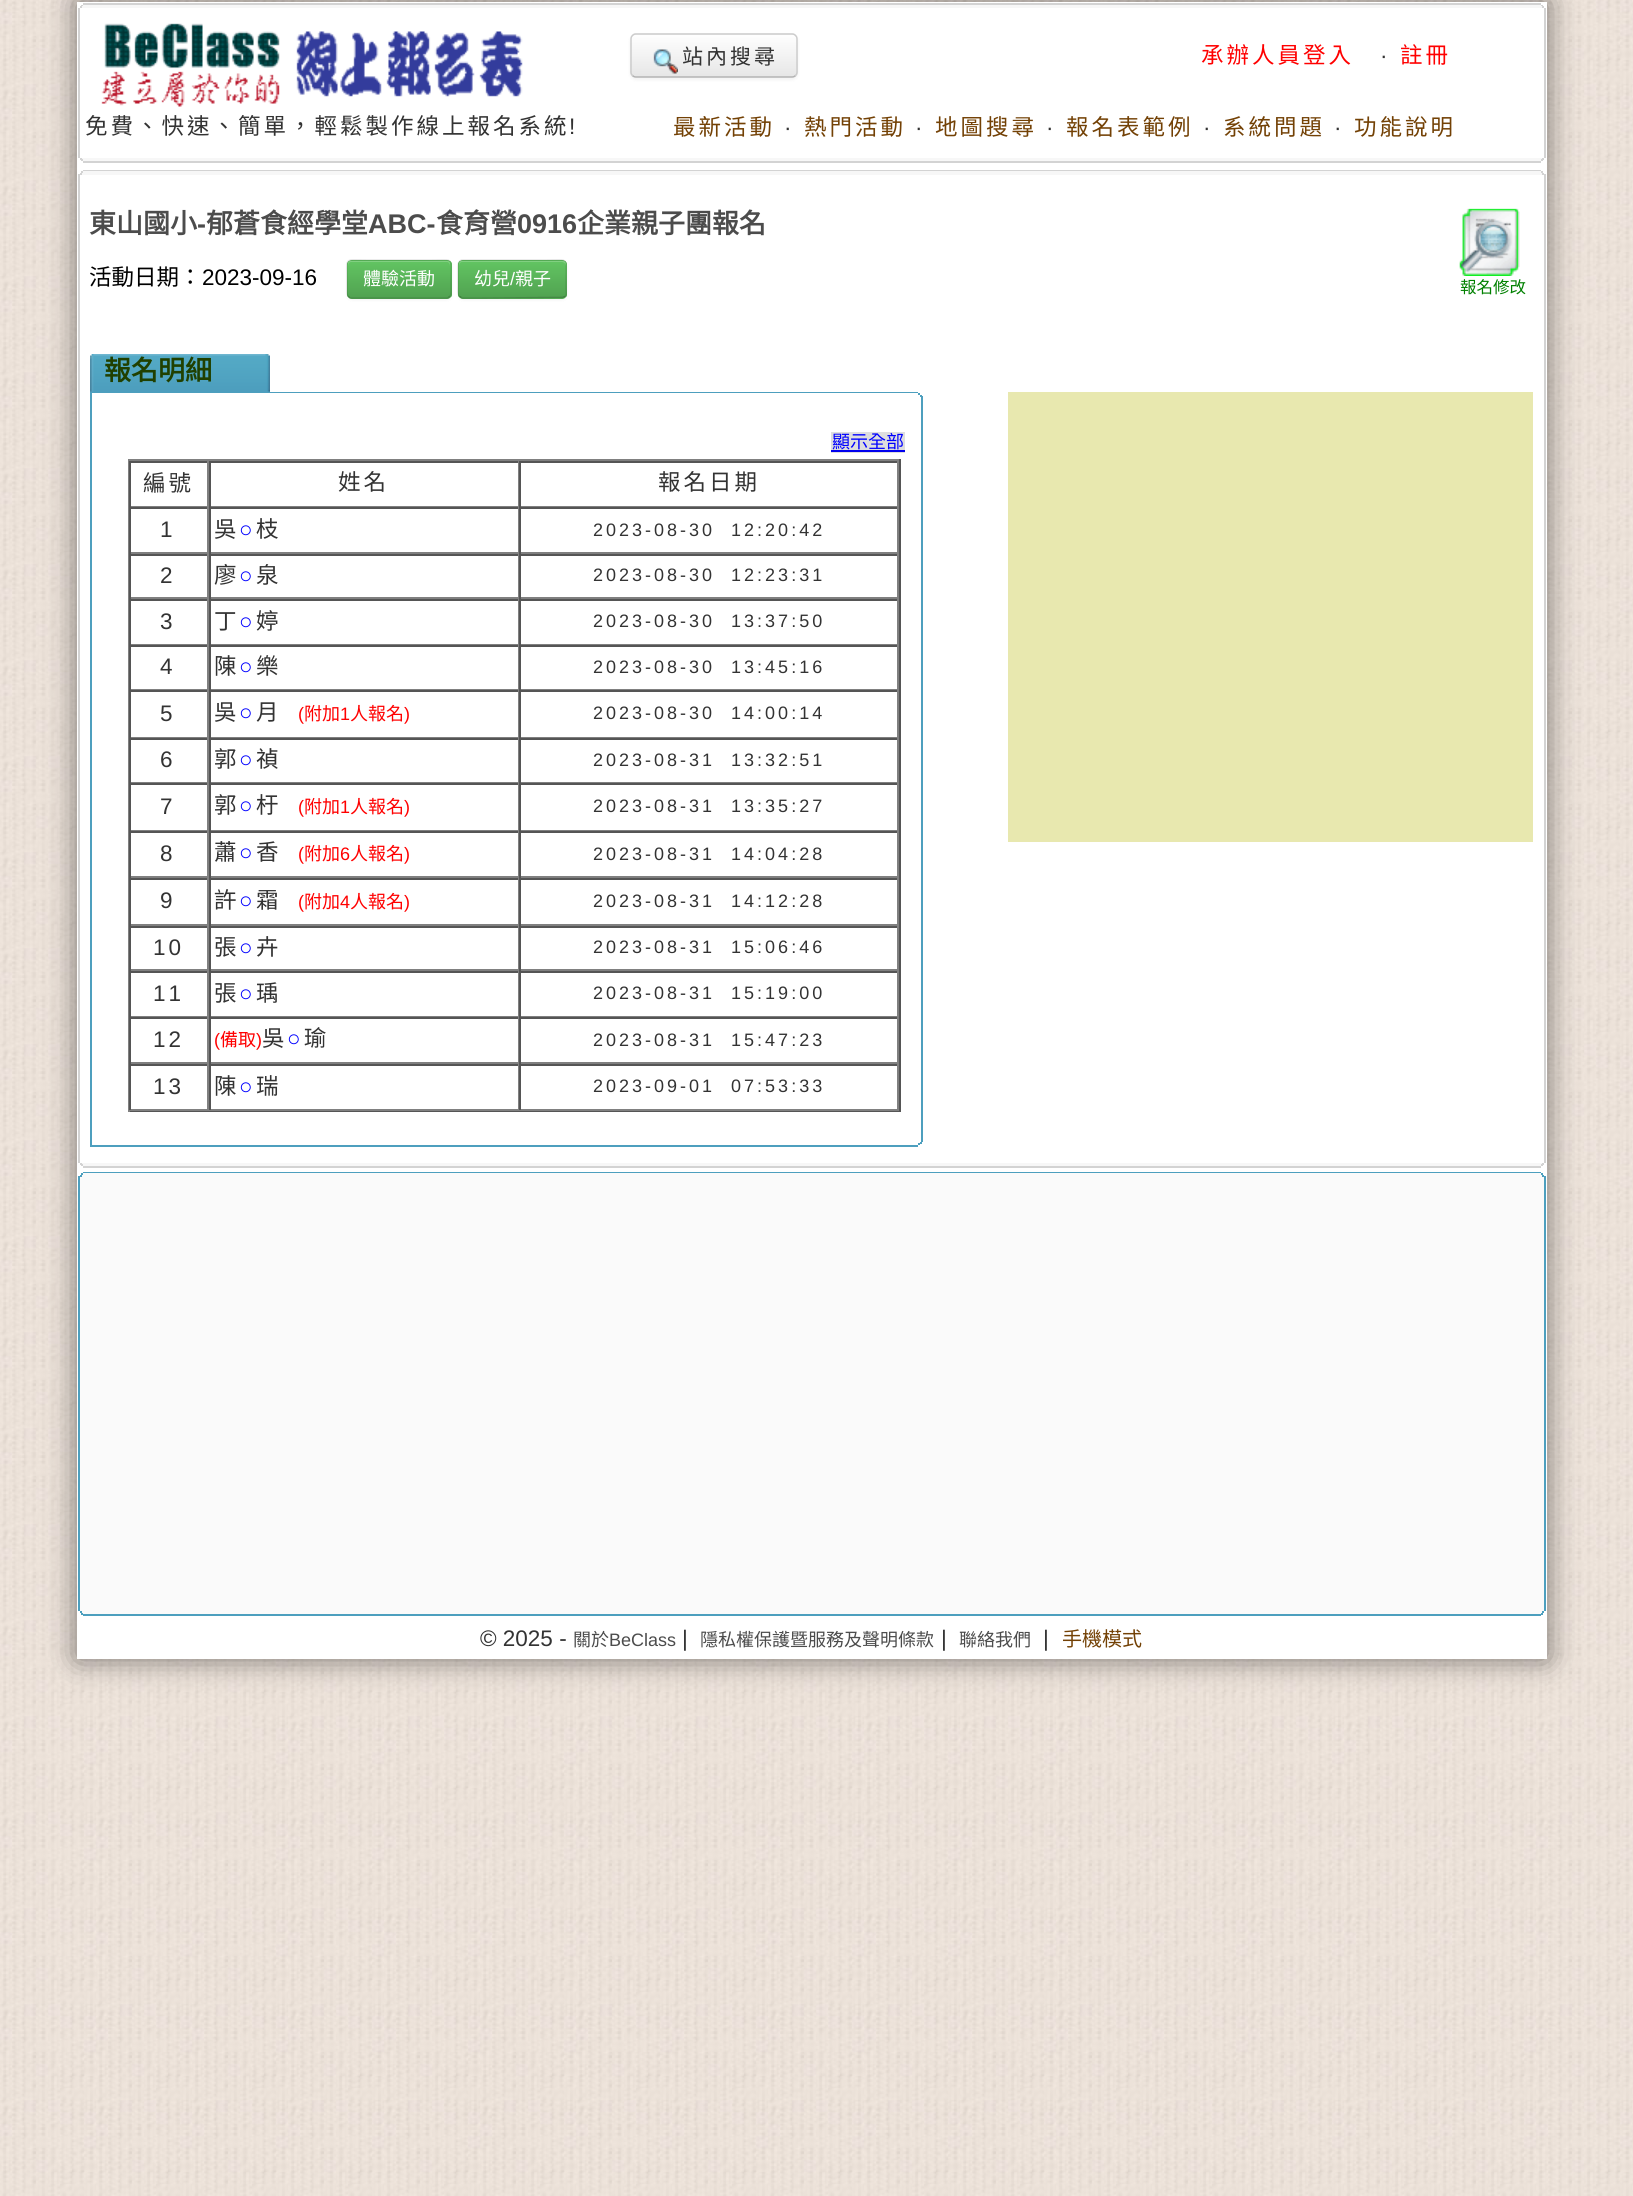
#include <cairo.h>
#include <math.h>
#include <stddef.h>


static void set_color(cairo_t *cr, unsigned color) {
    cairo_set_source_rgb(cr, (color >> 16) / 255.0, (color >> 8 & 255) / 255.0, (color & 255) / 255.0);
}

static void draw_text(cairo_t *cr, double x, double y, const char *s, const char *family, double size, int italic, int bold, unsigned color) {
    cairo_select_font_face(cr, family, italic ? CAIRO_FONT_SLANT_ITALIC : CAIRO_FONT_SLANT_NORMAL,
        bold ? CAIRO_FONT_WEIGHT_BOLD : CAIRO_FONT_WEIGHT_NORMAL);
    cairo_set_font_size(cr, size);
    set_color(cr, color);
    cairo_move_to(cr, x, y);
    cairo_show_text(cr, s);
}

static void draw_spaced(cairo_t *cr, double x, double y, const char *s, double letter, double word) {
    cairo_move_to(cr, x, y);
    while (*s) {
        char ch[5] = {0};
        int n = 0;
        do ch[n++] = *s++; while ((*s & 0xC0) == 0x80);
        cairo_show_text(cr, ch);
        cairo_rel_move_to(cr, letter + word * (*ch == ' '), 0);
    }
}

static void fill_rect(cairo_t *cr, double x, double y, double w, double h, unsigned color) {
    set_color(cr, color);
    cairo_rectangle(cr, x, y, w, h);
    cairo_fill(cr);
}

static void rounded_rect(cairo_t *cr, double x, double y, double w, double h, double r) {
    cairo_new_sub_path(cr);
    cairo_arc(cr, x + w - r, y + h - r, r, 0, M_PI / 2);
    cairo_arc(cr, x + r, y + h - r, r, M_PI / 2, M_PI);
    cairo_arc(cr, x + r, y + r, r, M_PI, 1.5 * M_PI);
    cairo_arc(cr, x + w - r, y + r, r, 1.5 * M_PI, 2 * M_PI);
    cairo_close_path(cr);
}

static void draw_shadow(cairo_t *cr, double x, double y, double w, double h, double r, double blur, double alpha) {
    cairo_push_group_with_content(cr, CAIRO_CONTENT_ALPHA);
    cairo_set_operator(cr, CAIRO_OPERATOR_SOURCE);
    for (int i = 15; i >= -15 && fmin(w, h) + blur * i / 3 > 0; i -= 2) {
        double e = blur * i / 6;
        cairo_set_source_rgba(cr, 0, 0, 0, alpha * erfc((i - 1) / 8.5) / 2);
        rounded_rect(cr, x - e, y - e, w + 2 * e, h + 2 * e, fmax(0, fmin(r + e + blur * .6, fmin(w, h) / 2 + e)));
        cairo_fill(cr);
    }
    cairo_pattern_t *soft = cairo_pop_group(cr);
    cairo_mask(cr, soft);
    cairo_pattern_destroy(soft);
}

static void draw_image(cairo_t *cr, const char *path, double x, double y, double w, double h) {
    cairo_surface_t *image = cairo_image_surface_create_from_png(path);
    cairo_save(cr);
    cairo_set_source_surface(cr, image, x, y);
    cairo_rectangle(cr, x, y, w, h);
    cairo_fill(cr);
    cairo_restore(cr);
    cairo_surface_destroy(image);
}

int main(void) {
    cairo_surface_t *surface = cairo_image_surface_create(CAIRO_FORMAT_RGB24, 1633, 2196);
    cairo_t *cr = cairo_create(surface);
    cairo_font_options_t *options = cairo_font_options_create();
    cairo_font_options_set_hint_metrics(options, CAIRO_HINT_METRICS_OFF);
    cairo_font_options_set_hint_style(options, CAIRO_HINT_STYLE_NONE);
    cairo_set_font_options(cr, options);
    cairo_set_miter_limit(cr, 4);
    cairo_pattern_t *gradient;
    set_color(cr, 0xFFFFFF);
    cairo_paint(cr);
    draw_image(cr, "assets/img1.png", 0, 0, 1633, 2196);
    set_color(cr, 0x000000);
    draw_shadow(cr, 77, 2, 1470, 1657, 0, 15, 0.5);
    fill_rect(cr, 77, 2, 1470, 1657, 0xFFFFFF);
    fill_rect(cr, 83, 3, 1458, 2, 0xD3D3D3);
    fill_rect(cr, 81, 5, 1461, 1, 0xF7F7F7);
    fill_rect(cr, 1541, 5, 2, 1, 0xD3D3D3);
    fill_rect(cr, 81, 5, 2, 1, 0xD3D3D3);
    fill_rect(cr, 80, 6, 1464, 2, 0xF7F7F7);
    fill_rect(cr, 1542, 6, 2, 2, 0xD3D3D3);
    fill_rect(cr, 80, 6, 2, 2, 0xD3D3D3);
    fill_rect(cr, 1544, 8, 2, 150, 0xD3D3D3);
    fill_rect(cr, 78, 8, 2, 150, 0xD3D3D3);
    set_color(cr, 0x000000);
    draw_shadow(cr, 630, 35, 168, 45, 6, 1.5, 0.05);
    set_color(cr, 0xF5F5F5);
    rounded_rect(cr, 630, 33, 168, 45, 6);
    cairo_fill(cr);
    cairo_save(cr);
    rounded_rect(cr, 630, 33, 168, 45, 6);
    cairo_clip(cr);
    gradient = cairo_pattern_create_linear(714, 34, 714, 77);
    cairo_pattern_add_color_stop_rgba(gradient, 0, 1, 1, 1, 1);
    cairo_pattern_add_color_stop_rgba(gradient, 1, 0.902, 0.902, 0.902, 1);
    cairo_set_source(cr, gradient);
    cairo_pattern_destroy(gradient);
    cairo_rectangle(cr, 630, 35, 168, 42);
    cairo_fill(cr);
    cairo_restore(cr);
    cairo_set_source_rgba(cr, 1, 1, 1, 0.2);
    cairo_new_path(cr);
    cairo_move_to(cr, 636, 36);
    cairo_line_to(cr, 792, 36);
    cairo_curve_to(cr, 794, 36, 796, 38, 796, 40);
    cairo_line_to(cr, 796, 75);
    cairo_curve_to(cr, 797, 74, 797, 73, 797, 72);
    cairo_line_to(cr, 797, 40);
    cairo_curve_to(cr, 797, 37, 795, 35, 792, 35);
    cairo_line_to(cr, 637, 35);
    cairo_curve_to(cr, 634, 35, 632, 37, 632, 40);
    cairo_curve_to(cr, 632, 38, 634, 36, 636, 36);
    cairo_close_path(cr);
    cairo_fill(cr);
    cairo_new_path(cr);
    cairo_move_to(cr, 795.5, 75.5);
    cairo_curve_to(cr, 794.5, 76.5, 793.5, 77, 792, 77);
    cairo_line_to(cr, 636, 77);
    cairo_curve_to(cr, 634.5, 77, 633.5, 76.5, 632.5, 75.5);
    set_color(cr, 0xB3B3B3);
    cairo_set_line_width(cr, 1.5);
    cairo_stroke(cr);
    cairo_new_path(cr);
    cairo_move_to(cr, 632.5, 75.5);
    cairo_curve_to(cr, 631.5, 74.5, 631, 73.5, 631, 72);
    cairo_line_to(cr, 631, 39);
    cairo_curve_to(cr, 631, 37.5, 631.5, 36.5, 632.5, 35.5);
    cairo_curve_to(cr, 633.5, 34.5, 634.5, 34, 636, 34);
    cairo_line_to(cr, 792, 34);
    cairo_curve_to(cr, 793.5, 34, 794.5, 34.5, 795.5, 35.5);
    cairo_curve_to(cr, 796.5, 36.5, 797, 37.5, 797, 39);
    cairo_line_to(cr, 797, 72);
    cairo_curve_to(cr, 797, 73.5, 796.5, 74.5, 795.5, 75.5);
    set_color(cr, 0xCCCCCC);
    cairo_stroke(cr);
    draw_image(cr, "assets/img2.png", 653, 49, 25, 25);
    cairo_select_font_face(cr, "Noto Sans CJK TC", CAIRO_FONT_SLANT_NORMAL, CAIRO_FONT_WEIGHT_NORMAL);
    cairo_set_font_size(cr, 21);
    set_color(cr, 0x333333);
    draw_spaced(cr, 682, 64, "站內搜尋", 3, 0);
    cairo_set_font_size(cr, 22.5);
    set_color(cr, 0xFF0000);
    draw_spaced(cr, 1201, 63, "承辦人員登入", 3, 0);
    cairo_select_font_face(cr, "Liberation Sans", CAIRO_FONT_SLANT_NORMAL, CAIRO_FONT_WEIGHT_NORMAL);
    set_color(cr, 0x333333);
    draw_spaced(cr, 1380, 63, "·", 3, 0);
    cairo_select_font_face(cr, "Noto Sans CJK TC", CAIRO_FONT_SLANT_NORMAL, CAIRO_FONT_WEIGHT_NORMAL);
    set_color(cr, 0xFF0000);
    draw_spaced(cr, 1400, 63, "註冊", 3, 0);
    draw_image(cr, "assets/img3.png", 101, 23, 422, 84);
    set_color(cr, 0x333333);
    draw_spaced(cr, 85, 134, "免費、快速、簡單，輕鬆製作線上報名系統", 3, 0);
    cairo_select_font_face(cr, "Liberation Sans", CAIRO_FONT_SLANT_NORMAL, CAIRO_FONT_WEIGHT_NORMAL);
    draw_spaced(cr, 569, 134, "!", 3, 0);
    cairo_select_font_face(cr, "Noto Sans CJK TC", CAIRO_FONT_SLANT_NORMAL, CAIRO_FONT_WEIGHT_NORMAL);
    set_color(cr, 0x734105);
    draw_spaced(cr, 673, 135, "最新活動", 3, 0);
    cairo_select_font_face(cr, "Liberation Sans", CAIRO_FONT_SLANT_NORMAL, CAIRO_FONT_WEIGHT_NORMAL);
    set_color(cr, 0x333333);
    draw_spaced(cr, 784, 135, "·", 3, 0);
    cairo_select_font_face(cr, "Noto Sans CJK TC", CAIRO_FONT_SLANT_NORMAL, CAIRO_FONT_WEIGHT_NORMAL);
    set_color(cr, 0x734105);
    draw_spaced(cr, 804, 135, "熱門活動", 3, 0);
    cairo_select_font_face(cr, "Liberation Sans", CAIRO_FONT_SLANT_NORMAL, CAIRO_FONT_WEIGHT_NORMAL);
    set_color(cr, 0x333333);
    draw_spaced(cr, 915, 135, "·", 3, 0);
    cairo_select_font_face(cr, "Noto Sans CJK TC", CAIRO_FONT_SLANT_NORMAL, CAIRO_FONT_WEIGHT_NORMAL);
    set_color(cr, 0x734105);
    draw_spaced(cr, 935, 135, "地圖搜尋", 3, 0);
    cairo_select_font_face(cr, "Liberation Sans", CAIRO_FONT_SLANT_NORMAL, CAIRO_FONT_WEIGHT_NORMAL);
    set_color(cr, 0x333333);
    draw_spaced(cr, 1046, 135, "·", 3, 0);
    cairo_select_font_face(cr, "Noto Sans CJK TC", CAIRO_FONT_SLANT_NORMAL, CAIRO_FONT_WEIGHT_NORMAL);
    set_color(cr, 0x734105);
    draw_spaced(cr, 1066, 135, "報名表範例", 3, 0);
    cairo_select_font_face(cr, "Liberation Sans", CAIRO_FONT_SLANT_NORMAL, CAIRO_FONT_WEIGHT_NORMAL);
    set_color(cr, 0x333333);
    draw_spaced(cr, 1203, 135, "·", 3, 0);
    cairo_select_font_face(cr, "Noto Sans CJK TC", CAIRO_FONT_SLANT_NORMAL, CAIRO_FONT_WEIGHT_NORMAL);
    set_color(cr, 0x734105);
    draw_spaced(cr, 1223, 135, "系統問題", 3, 0);
    cairo_select_font_face(cr, "Liberation Sans", CAIRO_FONT_SLANT_NORMAL, CAIRO_FONT_WEIGHT_NORMAL);
    set_color(cr, 0x333333);
    draw_spaced(cr, 1334, 135, "·", 3, 0);
    cairo_select_font_face(cr, "Noto Sans CJK TC", CAIRO_FONT_SLANT_NORMAL, CAIRO_FONT_WEIGHT_NORMAL);
    set_color(cr, 0x734105);
    draw_spaced(cr, 1354, 135, "功能說明", 3, 0);
    fill_rect(cr, 80, 158, 1464, 1, 0xF7F7F7);
    fill_rect(cr, 1542, 158, 2, 2, 0xD3D3D3);
    fill_rect(cr, 80, 158, 2, 2, 0xD3D3D3);
    fill_rect(cr, 81, 159, 1461, 2, 0xF7F7F7);
    fill_rect(cr, 1541, 159, 2, 2, 0xD3D3D3);
    fill_rect(cr, 81, 159, 2, 2, 0xD3D3D3);
    fill_rect(cr, 83, 161, 1458, 2, 0xD3D3D3);
    fill_rect(cr, 83, 170, 1458, 1, 0xD3D3D3);
    fill_rect(cr, 81, 171, 1461, 2, 0xF7F7F7);
    fill_rect(cr, 1541, 171, 2, 2, 0xD3D3D3);
    fill_rect(cr, 81, 171, 2, 2, 0xD3D3D3);
    fill_rect(cr, 80, 173, 1464, 2, 0xF7F7F7);
    fill_rect(cr, 1542, 173, 2, 2, 0xD3D3D3);
    fill_rect(cr, 80, 173, 2, 2, 0xD3D3D3);
    fill_rect(cr, 1544, 174, 2, 989, 0xD3D3D3);
    fill_rect(cr, 78, 174, 2, 989, 0xD3D3D3);
    draw_text(cr, 89, 233, "東山國小", "Noto Sans CJK TC", 27, 0, 1, 0x4C4C4C);
    draw_text(cr, 197, 233, "-", "Liberation Sans", 27, 0, 1, 0x4C4C4C);
    draw_text(cr, 206, 233, "郁蒼食經學堂", "Noto Sans CJK TC", 27, 0, 1, 0x4C4C4C);
    draw_text(cr, 368, 233, "ABC-", "Liberation Sans", 27, 0, 1, 0x4C4C4C);
    draw_text(cr, 436, 233, "食育營", "Noto Sans CJK TC", 27, 0, 1, 0x4C4C4C);
    draw_text(cr, 517, 233, "0916", "Liberation Sans", 27, 0, 1, 0x4C4C4C);
    draw_text(cr, 577, 233, "企業親子團報名", "Noto Sans CJK TC", 27, 0, 1, 0x4C4C4C);
    draw_text(cr, 89, 285, "活動日期：", "Noto Sans CJK TC", 22.5, 0, 0, 0x000000);
    draw_text(cr, 202, 285, "2023-09-16", "Liberation Sans", 22.5, 0, 0, 0x000000);
    set_color(cr, 0x000000);
    draw_shadow(cr, 347, 261, 105, 39, 5, 1.5, 0.05);
    set_color(cr, 0x5BB75B);
    rounded_rect(cr, 347, 260, 105, 39, 5);
    cairo_fill(cr);
    cairo_save(cr);
    rounded_rect(cr, 347, 260, 105, 39, 5);
    cairo_clip(cr);
    gradient = cairo_pattern_create_linear(399, 261, 399, 297);
    cairo_pattern_add_color_stop_rgba(gradient, 0, 0.384, 0.769, 0.384, 1);
    cairo_pattern_add_color_stop_rgba(gradient, 1, 0.318, 0.639, 0.318, 1);
    cairo_set_source(cr, gradient);
    cairo_pattern_destroy(gradient);
    cairo_rectangle(cr, 347, 261, 105, 36);
    cairo_fill(cr);
    cairo_restore(cr);
    set_color(cr, 0x81D081);
    cairo_new_path(cr);
    cairo_move_to(cr, 351, 262);
    cairo_line_to(cr, 447, 262);
    cairo_curve_to(cr, 449, 262, 450, 264, 450, 266);
    cairo_line_to(cr, 450, 264);
    cairo_curve_to(cr, 450, 262, 449, 261, 447, 261);
    cairo_line_to(cr, 351, 261);
    cairo_curve_to(cr, 349, 261, 348, 262, 348, 264);
    cairo_line_to(cr, 348, 266);
    cairo_curve_to(cr, 348, 264, 349, 262, 351, 262);
    cairo_close_path(cr);
    cairo_fill(cr);
    cairo_new_path(cr);
    cairo_move_to(cr, 449.5, 296.5);
    cairo_curve_to(cr, 449, 297.5, 448, 298, 447, 298);
    cairo_line_to(cr, 351, 298);
    cairo_curve_to(cr, 350, 298, 349, 297.5, 348.5, 296.5);
    cairo_set_source_rgba(cr, 0, 0, 0, 0.25);
    cairo_stroke(cr);
    cairo_new_path(cr);
    cairo_move_to(cr, 348.5, 296.5);
    cairo_curve_to(cr, 346.5, 295, 347, 291, 347, 289);
    cairo_line_to(cr, 347, 279);
    cairo_curve_to(cr, 347, 256.5, 343.5, 260, 367, 260);
    cairo_line_to(cr, 431, 260);
    cairo_curve_to(cr, 454.5, 260, 451, 256.5, 451, 279);
    cairo_line_to(cr, 451, 289);
    cairo_curve_to(cr, 451, 291, 451.5, 295, 449.5, 296.5);
    cairo_set_source_rgba(cr, 0, 0, 0, 0.1);
    cairo_stroke(cr);
    draw_text(cr, 363, 285, "體驗活動", "Noto Sans CJK TC", 18, 0, 0, 0xFFFFFF);
    set_color(cr, 0x000000);
    draw_shadow(cr, 458, 261, 109, 39, 5, 1.5, 0.05);
    set_color(cr, 0x5BB75B);
    rounded_rect(cr, 458, 260, 109, 39, 5);
    cairo_fill(cr);
    cairo_save(cr);
    rounded_rect(cr, 458, 260, 109, 39, 5);
    cairo_clip(cr);
    gradient = cairo_pattern_create_linear(512, 261, 512, 297);
    cairo_pattern_add_color_stop_rgba(gradient, 0, 0.384, 0.769, 0.384, 1);
    cairo_pattern_add_color_stop_rgba(gradient, 1, 0.318, 0.639, 0.318, 1);
    cairo_set_source(cr, gradient);
    cairo_pattern_destroy(gradient);
    cairo_rectangle(cr, 458, 261, 109, 36);
    cairo_fill(cr);
    cairo_restore(cr);
    set_color(cr, 0x81D081);
    cairo_new_path(cr);
    cairo_move_to(cr, 462, 262);
    cairo_line_to(cr, 562, 262);
    cairo_curve_to(cr, 564, 262, 566, 264, 566, 266);
    cairo_line_to(cr, 566, 264);
    cairo_curve_to(cr, 566, 262, 565, 261, 563, 261);
    cairo_line_to(cr, 462, 261);
    cairo_curve_to(cr, 460, 261, 459, 262, 459, 264);
    cairo_line_to(cr, 459, 266);
    cairo_curve_to(cr, 459, 264, 460, 262, 462, 262);
    cairo_close_path(cr);
    cairo_fill(cr);
    cairo_new_path(cr);
    cairo_move_to(cr, 565, 296.5);
    cairo_line_to(cr, 563, 297.5);
    cairo_line_to(cr, 479, 298);
    cairo_line_to(cr, 462, 298);
    cairo_line_to(cr, 459.5, 296.5);
    cairo_set_source_rgba(cr, 0, 0, 0, 0.25);
    cairo_stroke(cr);
    cairo_new_path(cr);
    cairo_move_to(cr, 459.5, 296.5);
    cairo_curve_to(cr, 457, 294, 458, 286.5, 458, 284);
    cairo_line_to(cr, 458, 269);
    cairo_curve_to(cr, 458, 266, 457.5, 260.5, 462, 260);
    cairo_line_to(cr, 546, 260);
    cairo_curve_to(cr, 569.5, 260, 566, 256.5, 566, 279);
    cairo_line_to(cr, 566, 289);
    cairo_curve_to(cr, 566, 291, 567, 295, 565, 296.5);
    cairo_set_source_rgba(cr, 0, 0, 0, 0.1);
    cairo_stroke(cr);
    draw_text(cr, 474, 285, "幼兒", "Noto Sans CJK TC", 18, 0, 0, 0xFFFFFF);
    draw_text(cr, 510, 285, "/", "Liberation Sans", 18, 0, 0, 0xFFFFFF);
    draw_text(cr, 515, 285, "親子", "Noto Sans CJK TC", 18, 0, 0, 0xFFFFFF);
    draw_image(cr, "assets/img4.png", 1459, 208, 61, 68);
    draw_text(cr, 1460, 293, "報名修改", "Noto Sans CJK TC", 16.5, 0, 0, 0x008000);
    fill_rect(cr, 90, 391, 180, 1, 0x4D9FBE);
    draw_image(cr, "assets/img5.png", 90, 354, 180, 38);
    draw_image(cr, "assets/img6.png", 90, 354, 4, 38);
    draw_text(cr, 104, 380, "報名明細", "Noto Sans CJK TC", 27, 0, 1, 0x204000);
    fill_rect(cr, 90, 392, 828, 1, 0x4D9FBE);
    fill_rect(cr, 918, 393, 2, 2, 0x4D9FBE);
    fill_rect(cr, 90, 393, 2, 2, 0x4D9FBE);
    fill_rect(cr, 90, 396, 2, 746, 0x4D9FBE);
    fill_rect(cr, 90, 396, 2, 1, 0xFFFFFF);
    fill_rect(cr, 921, 396, 2, 746, 0x4D9FBE);
    fill_rect(cr, 920, 395, 2, 2, 0x4D9FBE);
    fill_rect(cr, 90, 395, 2, 2, 0x4D9FBE);
    fill_rect(cr, 831, 432, 74, 21, 0xDEDEDE);
    draw_text(cr, 832, 448, "顯示全部", "Noto Sans CJK TC", 18, 0, 0, 0x0000FF);
    fill_rect(cr, 831, 450, 74, 2, 0x0000EE);
    fill_rect(cr, 128, 459, 772, 2, 0x808080);
    fill_rect(cr, 899, 459, 2, 653, 0x555555);
    fill_rect(cr, 128, 1110, 772, 2, 0x555555);
    fill_rect(cr, 128, 459, 2, 653, 0x808080);
    fill_rect(cr, 129, 461, 770, 2, 0x555555);
    fill_rect(cr, 207, 461, 2, 46, 0x808080);
    fill_rect(cr, 129, 506, 80, 1, 0x808080);
    fill_rect(cr, 129, 461, 2, 46, 0x555555);
    cairo_set_font_size(cr, 22.5);
    set_color(cr, 0x333333);
    draw_spaced(cr, 143, 491, "編號", 3, 0);
    fill_rect(cr, 518, 461, 1, 46, 0x808080);
    fill_rect(cr, 209, 506, 310, 1, 0x808080);
    fill_rect(cr, 209, 461, 2, 46, 0x555555);
    set_color(cr, 0x333333);
    draw_spaced(cr, 338, 490, "姓名", 3, 0);
    fill_rect(cr, 897, 461, 2, 46, 0x808080);
    fill_rect(cr, 519, 506, 380, 1, 0x808080);
    fill_rect(cr, 519, 461, 2, 46, 0x555555);
    set_color(cr, 0x333333);
    draw_spaced(cr, 658, 490, "報名日期", 3, 0);
    fill_rect(cr, 129, 507, 770, 2, 0x555555);
    fill_rect(cr, 207, 507, 2, 47, 0x808080);
    fill_rect(cr, 129, 552, 80, 2, 0x808080);
    fill_rect(cr, 129, 507, 2, 47, 0x555555);
    cairo_select_font_face(cr, "Liberation Sans", CAIRO_FONT_SLANT_NORMAL, CAIRO_FONT_WEIGHT_NORMAL);
    set_color(cr, 0x333333);
    draw_spaced(cr, 160, 537, "1", 3, 0);
    fill_rect(cr, 518, 507, 1, 47, 0x808080);
    fill_rect(cr, 209, 552, 310, 2, 0x808080);
    fill_rect(cr, 209, 507, 2, 47, 0x555555);
    cairo_select_font_face(cr, "Noto Sans CJK TC", CAIRO_FONT_SLANT_NORMAL, CAIRO_FONT_WEIGHT_NORMAL);
    set_color(cr, 0x333333);
    draw_spaced(cr, 214, 537, "吳", 3, 0);
    cairo_select_font_face(cr, "Liberation Sans", CAIRO_FONT_SLANT_NORMAL, CAIRO_FONT_WEIGHT_NORMAL);
    set_color(cr, 0x0000FF);
    draw_spaced(cr, 239, 537, "○", 3, 0);
    cairo_select_font_face(cr, "Noto Sans CJK TC", CAIRO_FONT_SLANT_NORMAL, CAIRO_FONT_WEIGHT_NORMAL);
    set_color(cr, 0x333333);
    draw_spaced(cr, 256, 537, "枝", 3, 0);
    fill_rect(cr, 897, 507, 2, 47, 0x808080);
    fill_rect(cr, 519, 552, 380, 2, 0x808080);
    fill_rect(cr, 519, 507, 2, 47, 0x555555);
    cairo_select_font_face(cr, "Liberation Sans", CAIRO_FONT_SLANT_NORMAL, CAIRO_FONT_WEIGHT_NORMAL);
    cairo_set_font_size(cr, 18);
    set_color(cr, 0x333333);
    draw_spaced(cr, 593, 536, "2023-08-30 12:20:42", 3, 8);
    fill_rect(cr, 129, 554, 770, 2, 0x555555);
    fill_rect(cr, 207, 554, 2, 45, 0x808080);
    fill_rect(cr, 129, 597, 80, 2, 0x808080);
    fill_rect(cr, 129, 554, 2, 45, 0x555555);
    cairo_set_font_size(cr, 22.5);
    set_color(cr, 0x333333);
    draw_spaced(cr, 160, 583, "2", 3, 0);
    fill_rect(cr, 518, 554, 1, 45, 0x808080);
    fill_rect(cr, 209, 597, 310, 2, 0x808080);
    fill_rect(cr, 209, 554, 2, 45, 0x555555);
    cairo_select_font_face(cr, "Noto Sans CJK TC", CAIRO_FONT_SLANT_NORMAL, CAIRO_FONT_WEIGHT_NORMAL);
    set_color(cr, 0x333333);
    draw_spaced(cr, 214, 583, "廖", 3, 0);
    cairo_select_font_face(cr, "Liberation Sans", CAIRO_FONT_SLANT_NORMAL, CAIRO_FONT_WEIGHT_NORMAL);
    set_color(cr, 0x0000FF);
    draw_spaced(cr, 239, 583, "○", 3, 0);
    cairo_select_font_face(cr, "Noto Sans CJK TC", CAIRO_FONT_SLANT_NORMAL, CAIRO_FONT_WEIGHT_NORMAL);
    set_color(cr, 0x333333);
    draw_spaced(cr, 256, 583, "泉", 3, 0);
    fill_rect(cr, 897, 554, 2, 45, 0x808080);
    fill_rect(cr, 519, 597, 380, 2, 0x808080);
    fill_rect(cr, 519, 554, 2, 45, 0x555555);
    cairo_select_font_face(cr, "Liberation Sans", CAIRO_FONT_SLANT_NORMAL, CAIRO_FONT_WEIGHT_NORMAL);
    cairo_set_font_size(cr, 18);
    set_color(cr, 0x333333);
    draw_spaced(cr, 593, 581, "2023-08-30 12:23:31", 3, 8);
    fill_rect(cr, 129, 599, 770, 2, 0x555555);
    fill_rect(cr, 207, 599, 2, 46, 0x808080);
    fill_rect(cr, 129, 644, 80, 1, 0x808080);
    fill_rect(cr, 129, 599, 2, 46, 0x555555);
    cairo_set_font_size(cr, 22.5);
    set_color(cr, 0x333333);
    draw_spaced(cr, 160, 629, "3", 3, 0);
    fill_rect(cr, 518, 599, 1, 46, 0x808080);
    fill_rect(cr, 209, 644, 310, 1, 0x808080);
    fill_rect(cr, 209, 599, 2, 46, 0x555555);
    cairo_select_font_face(cr, "Noto Sans CJK TC", CAIRO_FONT_SLANT_NORMAL, CAIRO_FONT_WEIGHT_NORMAL);
    set_color(cr, 0x333333);
    draw_spaced(cr, 214, 629, "丁", 3, 0);
    cairo_select_font_face(cr, "Liberation Sans", CAIRO_FONT_SLANT_NORMAL, CAIRO_FONT_WEIGHT_NORMAL);
    set_color(cr, 0x0000FF);
    draw_spaced(cr, 239, 629, "○", 3, 0);
    cairo_select_font_face(cr, "Noto Sans CJK TC", CAIRO_FONT_SLANT_NORMAL, CAIRO_FONT_WEIGHT_NORMAL);
    set_color(cr, 0x333333);
    draw_spaced(cr, 256, 629, "婷", 3, 0);
    fill_rect(cr, 897, 599, 2, 46, 0x808080);
    fill_rect(cr, 519, 644, 380, 1, 0x808080);
    fill_rect(cr, 519, 599, 2, 46, 0x555555);
    cairo_select_font_face(cr, "Liberation Sans", CAIRO_FONT_SLANT_NORMAL, CAIRO_FONT_WEIGHT_NORMAL);
    cairo_set_font_size(cr, 18);
    set_color(cr, 0x333333);
    draw_spaced(cr, 593, 627, "2023-08-30 13:37:50", 3, 8);
    fill_rect(cr, 129, 645, 770, 2, 0x555555);
    fill_rect(cr, 207, 645, 2, 45, 0x808080);
    fill_rect(cr, 129, 689, 80, 1, 0x808080);
    fill_rect(cr, 129, 645, 2, 45, 0x555555);
    cairo_set_font_size(cr, 22.5);
    set_color(cr, 0x333333);
    draw_spaced(cr, 160, 674, "4", 3, 0);
    fill_rect(cr, 518, 645, 1, 45, 0x808080);
    fill_rect(cr, 209, 689, 310, 1, 0x808080);
    fill_rect(cr, 209, 645, 2, 45, 0x555555);
    cairo_select_font_face(cr, "Noto Sans CJK TC", CAIRO_FONT_SLANT_NORMAL, CAIRO_FONT_WEIGHT_NORMAL);
    set_color(cr, 0x333333);
    draw_spaced(cr, 214, 674, "陳", 3, 0);
    cairo_select_font_face(cr, "Liberation Sans", CAIRO_FONT_SLANT_NORMAL, CAIRO_FONT_WEIGHT_NORMAL);
    set_color(cr, 0x0000FF);
    draw_spaced(cr, 239, 674, "○", 3, 0);
    cairo_select_font_face(cr, "Noto Sans CJK TC", CAIRO_FONT_SLANT_NORMAL, CAIRO_FONT_WEIGHT_NORMAL);
    set_color(cr, 0x333333);
    draw_spaced(cr, 256, 674, "樂", 3, 0);
    fill_rect(cr, 897, 645, 2, 45, 0x808080);
    fill_rect(cr, 519, 689, 380, 1, 0x808080);
    fill_rect(cr, 519, 645, 2, 45, 0x555555);
    cairo_select_font_face(cr, "Liberation Sans", CAIRO_FONT_SLANT_NORMAL, CAIRO_FONT_WEIGHT_NORMAL);
    cairo_set_font_size(cr, 18);
    set_color(cr, 0x333333);
    draw_spaced(cr, 593, 673, "2023-08-30 13:45:16", 3, 8);
    fill_rect(cr, 129, 690, 770, 2, 0x555555);
    fill_rect(cr, 207, 690, 2, 48, 0x808080);
    fill_rect(cr, 129, 737, 80, 1, 0x808080);
    fill_rect(cr, 129, 690, 2, 48, 0x555555);
    cairo_set_font_size(cr, 22.5);
    set_color(cr, 0x333333);
    draw_spaced(cr, 160, 721, "5", 3, 0);
    fill_rect(cr, 518, 690, 1, 48, 0x808080);
    fill_rect(cr, 209, 737, 310, 1, 0x808080);
    fill_rect(cr, 209, 690, 2, 48, 0x555555);
    cairo_select_font_face(cr, "Noto Sans CJK TC", CAIRO_FONT_SLANT_NORMAL, CAIRO_FONT_WEIGHT_NORMAL);
    set_color(cr, 0x333333);
    draw_spaced(cr, 214, 720, "吳", 3, 0);
    cairo_select_font_face(cr, "Liberation Sans", CAIRO_FONT_SLANT_NORMAL, CAIRO_FONT_WEIGHT_NORMAL);
    set_color(cr, 0x0000FF);
    draw_spaced(cr, 239, 720, "○", 3, 0);
    cairo_select_font_face(cr, "Noto Sans CJK TC", CAIRO_FONT_SLANT_NORMAL, CAIRO_FONT_WEIGHT_NORMAL);
    set_color(cr, 0x333333);
    draw_spaced(cr, 256, 720, "月", 3, 0);
    draw_text(cr, 298, 720, "(", "Liberation Sans", 18, 0, 0, 0xFF0000);
    draw_text(cr, 304, 720, "附加", "Noto Sans CJK TC", 18, 0, 0, 0xFF0000);
    draw_text(cr, 340, 720, "1", "Liberation Sans", 18, 0, 0, 0xFF0000);
    draw_text(cr, 350, 720, "人報名", "Noto Sans CJK TC", 18, 0, 0, 0xFF0000);
    draw_text(cr, 404, 720, ")", "Liberation Sans", 18, 0, 0, 0xFF0000);
    fill_rect(cr, 897, 690, 2, 48, 0x808080);
    fill_rect(cr, 519, 737, 380, 1, 0x808080);
    fill_rect(cr, 519, 690, 2, 48, 0x555555);
    set_color(cr, 0x333333);
    draw_spaced(cr, 593, 719, "2023-08-30 14:00:14", 3, 8);
    fill_rect(cr, 129, 738, 770, 2, 0x555555);
    fill_rect(cr, 207, 738, 2, 45, 0x808080);
    fill_rect(cr, 129, 782, 80, 1, 0x808080);
    fill_rect(cr, 129, 738, 2, 45, 0x555555);
    cairo_set_font_size(cr, 22.5);
    set_color(cr, 0x333333);
    draw_spaced(cr, 160, 767, "6", 3, 0);
    fill_rect(cr, 518, 738, 1, 45, 0x808080);
    fill_rect(cr, 209, 782, 310, 1, 0x808080);
    fill_rect(cr, 209, 738, 2, 45, 0x555555);
    cairo_select_font_face(cr, "Noto Sans CJK TC", CAIRO_FONT_SLANT_NORMAL, CAIRO_FONT_WEIGHT_NORMAL);
    set_color(cr, 0x333333);
    draw_spaced(cr, 214, 767, "郭", 3, 0);
    cairo_select_font_face(cr, "Liberation Sans", CAIRO_FONT_SLANT_NORMAL, CAIRO_FONT_WEIGHT_NORMAL);
    set_color(cr, 0x0000FF);
    draw_spaced(cr, 239, 767, "○", 3, 0);
    cairo_select_font_face(cr, "Noto Sans CJK TC", CAIRO_FONT_SLANT_NORMAL, CAIRO_FONT_WEIGHT_NORMAL);
    set_color(cr, 0x333333);
    draw_spaced(cr, 256, 767, "禎", 3, 0);
    fill_rect(cr, 897, 738, 2, 45, 0x808080);
    fill_rect(cr, 519, 782, 380, 1, 0x808080);
    fill_rect(cr, 519, 738, 2, 45, 0x555555);
    cairo_select_font_face(cr, "Liberation Sans", CAIRO_FONT_SLANT_NORMAL, CAIRO_FONT_WEIGHT_NORMAL);
    cairo_set_font_size(cr, 18);
    set_color(cr, 0x333333);
    draw_spaced(cr, 593, 766, "2023-08-31 13:32:51", 3, 8);
    fill_rect(cr, 129, 783, 770, 2, 0x555555);
    fill_rect(cr, 207, 783, 2, 48, 0x808080);
    fill_rect(cr, 129, 830, 80, 1, 0x808080);
    fill_rect(cr, 129, 783, 2, 48, 0x555555);
    cairo_set_font_size(cr, 22.5);
    set_color(cr, 0x333333);
    draw_spaced(cr, 160, 814, "7", 3, 0);
    fill_rect(cr, 518, 783, 1, 48, 0x808080);
    fill_rect(cr, 209, 830, 310, 1, 0x808080);
    fill_rect(cr, 209, 783, 2, 48, 0x555555);
    cairo_select_font_face(cr, "Noto Sans CJK TC", CAIRO_FONT_SLANT_NORMAL, CAIRO_FONT_WEIGHT_NORMAL);
    set_color(cr, 0x333333);
    draw_spaced(cr, 214, 813, "郭", 3, 0);
    cairo_select_font_face(cr, "Liberation Sans", CAIRO_FONT_SLANT_NORMAL, CAIRO_FONT_WEIGHT_NORMAL);
    set_color(cr, 0x0000FF);
    draw_spaced(cr, 239, 813, "○", 3, 0);
    cairo_select_font_face(cr, "Noto Sans CJK TC", CAIRO_FONT_SLANT_NORMAL, CAIRO_FONT_WEIGHT_NORMAL);
    set_color(cr, 0x333333);
    draw_spaced(cr, 256, 813, "杅", 3, 0);
    draw_text(cr, 298, 813, "(", "Liberation Sans", 18, 0, 0, 0xFF0000);
    draw_text(cr, 304, 813, "附加", "Noto Sans CJK TC", 18, 0, 0, 0xFF0000);
    draw_text(cr, 340, 813, "1", "Liberation Sans", 18, 0, 0, 0xFF0000);
    draw_text(cr, 350, 813, "人報名", "Noto Sans CJK TC", 18, 0, 0, 0xFF0000);
    draw_text(cr, 404, 813, ")", "Liberation Sans", 18, 0, 0, 0xFF0000);
    fill_rect(cr, 897, 783, 2, 48, 0x808080);
    fill_rect(cr, 519, 830, 380, 1, 0x808080);
    fill_rect(cr, 519, 783, 2, 48, 0x555555);
    set_color(cr, 0x333333);
    draw_spaced(cr, 593, 812, "2023-08-31 13:35:27", 3, 8);
    fill_rect(cr, 129, 831, 770, 2, 0x555555);
    fill_rect(cr, 207, 831, 2, 47, 0x808080);
    fill_rect(cr, 129, 876, 80, 2, 0x808080);
    fill_rect(cr, 129, 831, 2, 47, 0x555555);
    cairo_set_font_size(cr, 22.5);
    set_color(cr, 0x333333);
    draw_spaced(cr, 160, 861, "8", 3, 0);
    fill_rect(cr, 518, 831, 1, 47, 0x808080);
    fill_rect(cr, 209, 876, 310, 2, 0x808080);
    fill_rect(cr, 209, 831, 2, 47, 0x555555);
    cairo_select_font_face(cr, "Noto Sans CJK TC", CAIRO_FONT_SLANT_NORMAL, CAIRO_FONT_WEIGHT_NORMAL);
    set_color(cr, 0x333333);
    draw_spaced(cr, 214, 860, "蕭", 3, 0);
    cairo_select_font_face(cr, "Liberation Sans", CAIRO_FONT_SLANT_NORMAL, CAIRO_FONT_WEIGHT_NORMAL);
    set_color(cr, 0x0000FF);
    draw_spaced(cr, 239, 860, "○", 3, 0);
    cairo_select_font_face(cr, "Noto Sans CJK TC", CAIRO_FONT_SLANT_NORMAL, CAIRO_FONT_WEIGHT_NORMAL);
    set_color(cr, 0x333333);
    draw_spaced(cr, 256, 860, "香", 3, 0);
    draw_text(cr, 298, 860, "(", "Liberation Sans", 18, 0, 0, 0xFF0000);
    draw_text(cr, 304, 860, "附加", "Noto Sans CJK TC", 18, 0, 0, 0xFF0000);
    draw_text(cr, 340, 860, "6", "Liberation Sans", 18, 0, 0, 0xFF0000);
    draw_text(cr, 350, 860, "人報名", "Noto Sans CJK TC", 18, 0, 0, 0xFF0000);
    draw_text(cr, 404, 860, ")", "Liberation Sans", 18, 0, 0, 0xFF0000);
    fill_rect(cr, 897, 831, 2, 47, 0x808080);
    fill_rect(cr, 519, 876, 380, 2, 0x808080);
    fill_rect(cr, 519, 831, 2, 47, 0x555555);
    set_color(cr, 0x333333);
    draw_spaced(cr, 593, 860, "2023-08-31 14:04:28", 3, 8);
    fill_rect(cr, 129, 878, 770, 2, 0x555555);
    fill_rect(cr, 207, 878, 2, 48, 0x808080);
    fill_rect(cr, 129, 924, 80, 2, 0x808080);
    fill_rect(cr, 129, 878, 2, 48, 0x555555);
    cairo_set_font_size(cr, 22.5);
    set_color(cr, 0x333333);
    draw_spaced(cr, 160, 908, "9", 3, 0);
    fill_rect(cr, 518, 878, 1, 48, 0x808080);
    fill_rect(cr, 209, 924, 310, 2, 0x808080);
    fill_rect(cr, 209, 878, 2, 48, 0x555555);
    cairo_select_font_face(cr, "Noto Sans CJK TC", CAIRO_FONT_SLANT_NORMAL, CAIRO_FONT_WEIGHT_NORMAL);
    set_color(cr, 0x333333);
    draw_spaced(cr, 214, 908, "許", 3, 0);
    cairo_select_font_face(cr, "Liberation Sans", CAIRO_FONT_SLANT_NORMAL, CAIRO_FONT_WEIGHT_NORMAL);
    set_color(cr, 0x0000FF);
    draw_spaced(cr, 239, 908, "○", 3, 0);
    cairo_select_font_face(cr, "Noto Sans CJK TC", CAIRO_FONT_SLANT_NORMAL, CAIRO_FONT_WEIGHT_NORMAL);
    set_color(cr, 0x333333);
    draw_spaced(cr, 256, 908, "霜", 3, 0);
    draw_text(cr, 298, 908, "(", "Liberation Sans", 18, 0, 0, 0xFF0000);
    draw_text(cr, 304, 908, "附加", "Noto Sans CJK TC", 18, 0, 0, 0xFF0000);
    draw_text(cr, 340, 908, "4", "Liberation Sans", 18, 0, 0, 0xFF0000);
    draw_text(cr, 350, 908, "人報名", "Noto Sans CJK TC", 18, 0, 0, 0xFF0000);
    draw_text(cr, 404, 908, ")", "Liberation Sans", 18, 0, 0, 0xFF0000);
    fill_rect(cr, 897, 878, 2, 48, 0x808080);
    fill_rect(cr, 519, 924, 380, 2, 0x808080);
    fill_rect(cr, 519, 878, 2, 48, 0x555555);
    set_color(cr, 0x333333);
    draw_spaced(cr, 593, 907, "2023-08-31 14:12:28", 3, 8);
    fill_rect(cr, 129, 926, 770, 2, 0x555555);
    fill_rect(cr, 207, 926, 2, 45, 0x808080);
    fill_rect(cr, 129, 969, 80, 2, 0x808080);
    fill_rect(cr, 129, 926, 2, 45, 0x555555);
    cairo_set_font_size(cr, 22.5);
    set_color(cr, 0x333333);
    draw_spaced(cr, 153, 955, "10", 3, 0);
    fill_rect(cr, 518, 926, 1, 45, 0x808080);
    fill_rect(cr, 209, 969, 310, 2, 0x808080);
    fill_rect(cr, 209, 926, 2, 45, 0x555555);
    cairo_select_font_face(cr, "Noto Sans CJK TC", CAIRO_FONT_SLANT_NORMAL, CAIRO_FONT_WEIGHT_NORMAL);
    set_color(cr, 0x333333);
    draw_spaced(cr, 214, 955, "張", 3, 0);
    cairo_select_font_face(cr, "Liberation Sans", CAIRO_FONT_SLANT_NORMAL, CAIRO_FONT_WEIGHT_NORMAL);
    set_color(cr, 0x0000FF);
    draw_spaced(cr, 239, 955, "○", 3, 0);
    cairo_select_font_face(cr, "Noto Sans CJK TC", CAIRO_FONT_SLANT_NORMAL, CAIRO_FONT_WEIGHT_NORMAL);
    set_color(cr, 0x333333);
    draw_spaced(cr, 256, 955, "卉", 3, 0);
    fill_rect(cr, 897, 926, 2, 45, 0x808080);
    fill_rect(cr, 519, 969, 380, 2, 0x808080);
    fill_rect(cr, 519, 926, 2, 45, 0x555555);
    cairo_select_font_face(cr, "Liberation Sans", CAIRO_FONT_SLANT_NORMAL, CAIRO_FONT_WEIGHT_NORMAL);
    cairo_set_font_size(cr, 18);
    set_color(cr, 0x333333);
    draw_spaced(cr, 593, 953, "2023-08-31 15:06:46", 3, 8);
    fill_rect(cr, 129, 971, 770, 2, 0x555555);
    fill_rect(cr, 207, 971, 2, 46, 0x808080);
    fill_rect(cr, 129, 1016, 80, 1, 0x808080);
    fill_rect(cr, 129, 971, 2, 46, 0x555555);
    cairo_set_font_size(cr, 22.5);
    set_color(cr, 0x333333);
    draw_spaced(cr, 153, 1001, "11", 3, 0);
    fill_rect(cr, 518, 971, 1, 46, 0x808080);
    fill_rect(cr, 209, 1016, 310, 1, 0x808080);
    fill_rect(cr, 209, 971, 2, 46, 0x555555);
    cairo_select_font_face(cr, "Noto Sans CJK TC", CAIRO_FONT_SLANT_NORMAL, CAIRO_FONT_WEIGHT_NORMAL);
    set_color(cr, 0x333333);
    draw_spaced(cr, 214, 1001, "張", 3, 0);
    cairo_select_font_face(cr, "Liberation Sans", CAIRO_FONT_SLANT_NORMAL, CAIRO_FONT_WEIGHT_NORMAL);
    set_color(cr, 0x0000FF);
    draw_spaced(cr, 239, 1001, "○", 3, 0);
    cairo_select_font_face(cr, "Noto Sans CJK TC", CAIRO_FONT_SLANT_NORMAL, CAIRO_FONT_WEIGHT_NORMAL);
    set_color(cr, 0x333333);
    draw_spaced(cr, 256, 1001, "瑀", 3, 0);
    fill_rect(cr, 897, 971, 2, 46, 0x808080);
    fill_rect(cr, 519, 1016, 380, 1, 0x808080);
    fill_rect(cr, 519, 971, 2, 46, 0x555555);
    cairo_select_font_face(cr, "Liberation Sans", CAIRO_FONT_SLANT_NORMAL, CAIRO_FONT_WEIGHT_NORMAL);
    cairo_set_font_size(cr, 18);
    set_color(cr, 0x333333);
    draw_spaced(cr, 593, 999, "2023-08-31 15:19:00", 3, 8);
    fill_rect(cr, 129, 1017, 770, 2, 0x555555);
    fill_rect(cr, 207, 1017, 2, 47, 0x808080);
    fill_rect(cr, 129, 1062, 80, 2, 0x808080);
    fill_rect(cr, 129, 1017, 2, 47, 0x555555);
    cairo_set_font_size(cr, 22.5);
    set_color(cr, 0x333333);
    draw_spaced(cr, 153, 1047, "12", 3, 0);
    fill_rect(cr, 518, 1017, 1, 47, 0x808080);
    fill_rect(cr, 209, 1062, 310, 2, 0x808080);
    fill_rect(cr, 209, 1017, 2, 47, 0x555555);
    draw_text(cr, 214, 1046, "(", "Liberation Sans", 18, 0, 0, 0xFF0000);
    draw_text(cr, 220, 1046, "備取", "Noto Sans CJK TC", 18, 0, 0, 0xFF0000);
    draw_text(cr, 256, 1046, ")", "Liberation Sans", 18, 0, 0, 0xFF0000);
    cairo_select_font_face(cr, "Noto Sans CJK TC", CAIRO_FONT_SLANT_NORMAL, CAIRO_FONT_WEIGHT_NORMAL);
    cairo_set_font_size(cr, 22.5);
    set_color(cr, 0x333333);
    draw_spaced(cr, 262, 1046, "吳", 3, 0);
    cairo_select_font_face(cr, "Liberation Sans", CAIRO_FONT_SLANT_NORMAL, CAIRO_FONT_WEIGHT_NORMAL);
    set_color(cr, 0x0000FF);
    draw_spaced(cr, 287, 1046, "○", 3, 0);
    cairo_select_font_face(cr, "Noto Sans CJK TC", CAIRO_FONT_SLANT_NORMAL, CAIRO_FONT_WEIGHT_NORMAL);
    set_color(cr, 0x333333);
    draw_spaced(cr, 304, 1046, "瑜", 3, 0);
    fill_rect(cr, 897, 1017, 2, 47, 0x808080);
    fill_rect(cr, 519, 1062, 380, 2, 0x808080);
    fill_rect(cr, 519, 1017, 2, 47, 0x555555);
    cairo_select_font_face(cr, "Liberation Sans", CAIRO_FONT_SLANT_NORMAL, CAIRO_FONT_WEIGHT_NORMAL);
    cairo_set_font_size(cr, 18);
    set_color(cr, 0x333333);
    draw_spaced(cr, 593, 1046, "2023-08-31 15:47:23", 3, 8);
    fill_rect(cr, 129, 1064, 770, 2, 0x555555);
    fill_rect(cr, 207, 1064, 2, 46, 0x808080);
    fill_rect(cr, 129, 1109, 80, 2, 0x808080);
    fill_rect(cr, 129, 1064, 2, 46, 0x555555);
    cairo_set_font_size(cr, 22.5);
    set_color(cr, 0x333333);
    draw_spaced(cr, 153, 1094, "13", 3, 0);
    fill_rect(cr, 518, 1064, 1, 46, 0x808080);
    fill_rect(cr, 209, 1109, 310, 2, 0x808080);
    fill_rect(cr, 209, 1064, 2, 46, 0x555555);
    cairo_select_font_face(cr, "Noto Sans CJK TC", CAIRO_FONT_SLANT_NORMAL, CAIRO_FONT_WEIGHT_NORMAL);
    set_color(cr, 0x333333);
    draw_spaced(cr, 214, 1094, "陳", 3, 0);
    cairo_select_font_face(cr, "Liberation Sans", CAIRO_FONT_SLANT_NORMAL, CAIRO_FONT_WEIGHT_NORMAL);
    set_color(cr, 0x0000FF);
    draw_spaced(cr, 239, 1094, "○", 3, 0);
    cairo_select_font_face(cr, "Noto Sans CJK TC", CAIRO_FONT_SLANT_NORMAL, CAIRO_FONT_WEIGHT_NORMAL);
    set_color(cr, 0x333333);
    draw_spaced(cr, 256, 1094, "瑞", 3, 0);
    fill_rect(cr, 897, 1064, 2, 46, 0x808080);
    fill_rect(cr, 519, 1109, 380, 2, 0x808080);
    fill_rect(cr, 519, 1064, 2, 46, 0x555555);
    cairo_select_font_face(cr, "Liberation Sans", CAIRO_FONT_SLANT_NORMAL, CAIRO_FONT_WEIGHT_NORMAL);
    cairo_set_font_size(cr, 18);
    set_color(cr, 0x333333);
    draw_spaced(cr, 593, 1092, "2023-09-01 07:53:33", 3, 8);
    fill_rect(cr, 920, 1142, 2, 2, 0x4D9FBE);
    fill_rect(cr, 90, 1142, 2, 3, 0x4D9FBE);
    fill_rect(cr, 918, 1143, 2, 2, 0x4D9FBE);
    fill_rect(cr, 90, 1145, 828, 2, 0x4D9FBE);
    fill_rect(cr, 1008, 392, 525, 450, 0xE8E8AF);
    fill_rect(cr, 80, 1163, 1464, 1, 0xF7F7F7);
    fill_rect(cr, 1542, 1163, 2, 2, 0xD3D3D3);
    fill_rect(cr, 80, 1163, 2, 2, 0xD3D3D3);
    fill_rect(cr, 81, 1164, 1461, 2, 0xF7F7F7);
    fill_rect(cr, 1541, 1164, 2, 2, 0xD3D3D3);
    fill_rect(cr, 81, 1164, 2, 2, 0xD3D3D3);
    fill_rect(cr, 83, 1166, 1458, 2, 0xD3D3D3);
    fill_rect(cr, 83, 1172, 1458, 1, 0x4D9FBE);
    fill_rect(cr, 81, 1173, 1461, 2, 0xFAFAFA);
    fill_rect(cr, 1541, 1173, 2, 2, 0x4D9FBE);
    fill_rect(cr, 81, 1173, 2, 2, 0x4D9FBE);
    fill_rect(cr, 80, 1175, 1464, 2, 0xFAFAFA);
    fill_rect(cr, 1542, 1175, 2, 2, 0x4D9FBE);
    fill_rect(cr, 80, 1175, 2, 2, 0x4D9FBE);
    fill_rect(cr, 80, 1177, 1464, 434, 0xFAFAFA);
    fill_rect(cr, 1544, 1176, 2, 435, 0x4D9FBE);
    fill_rect(cr, 78, 1176, 2, 435, 0x4D9FBE);
    fill_rect(cr, 80, 1611, 1464, 2, 0xFAFAFA);
    fill_rect(cr, 1542, 1611, 2, 2, 0x4D9FBE);
    fill_rect(cr, 80, 1611, 2, 2, 0x4D9FBE);
    fill_rect(cr, 81, 1613, 1461, 1, 0xFAFAFA);
    fill_rect(cr, 1541, 1613, 2, 2, 0x4D9FBE);
    fill_rect(cr, 81, 1613, 2, 2, 0x4D9FBE);
    fill_rect(cr, 83, 1614, 1458, 2, 0x4D9FBE);
    draw_text(cr, 480, 1646, "© 2025 -", "Liberation Sans", 22.5, 0, 0, 0x333333);
    draw_text(cr, 573, 1646, "關於", "Noto Sans CJK TC", 18, 0, 0, 0x4C4C4C);
    draw_text(cr, 609, 1646, "BeClass", "Liberation Sans", 18, 0, 0, 0x4C4C4C);
    draw_text(cr, 682, 1646, "|", "Liberation Sans", 22.5, 0, 0, 0x333333);
    draw_text(cr, 700, 1646, "隱私權保護暨服務及聲明條款", "Noto Sans CJK TC", 18, 0, 0, 0x4C4C4C);
    draw_text(cr, 941, 1646, "|", "Liberation Sans", 22.5, 0, 0, 0x333333);
    draw_text(cr, 959, 1646, "聯絡我們", "Noto Sans CJK TC", 18, 0, 0, 0x4C4C4C);
    draw_text(cr, 1043, 1646, "|", "Liberation Sans", 22.5, 0, 0, 0x333333);
    draw_text(cr, 1062, 1646, "手機模式", "Noto Sans CJK TC", 20, 0, 0, 0x734105);
    cairo_surface_write_to_png(surface, "output.png");
    cairo_font_options_destroy(options);
    cairo_destroy(cr);
    cairo_surface_destroy(surface);
    return 0;
}
